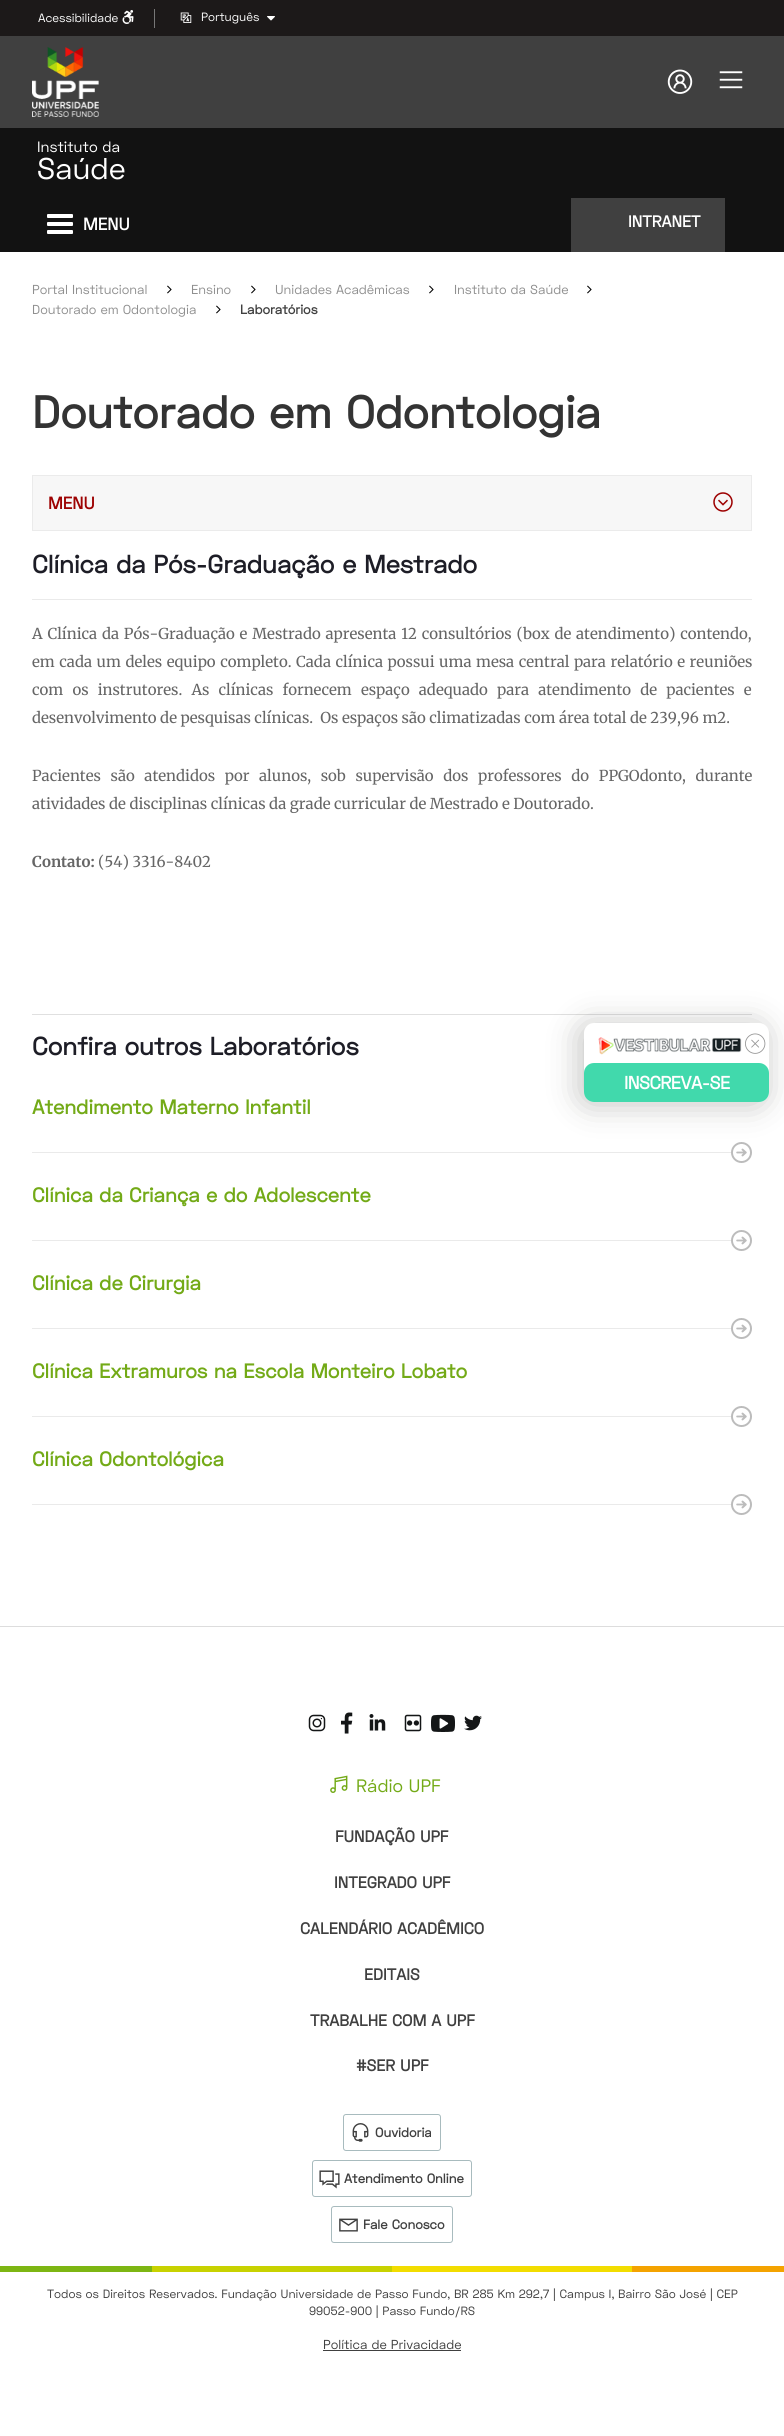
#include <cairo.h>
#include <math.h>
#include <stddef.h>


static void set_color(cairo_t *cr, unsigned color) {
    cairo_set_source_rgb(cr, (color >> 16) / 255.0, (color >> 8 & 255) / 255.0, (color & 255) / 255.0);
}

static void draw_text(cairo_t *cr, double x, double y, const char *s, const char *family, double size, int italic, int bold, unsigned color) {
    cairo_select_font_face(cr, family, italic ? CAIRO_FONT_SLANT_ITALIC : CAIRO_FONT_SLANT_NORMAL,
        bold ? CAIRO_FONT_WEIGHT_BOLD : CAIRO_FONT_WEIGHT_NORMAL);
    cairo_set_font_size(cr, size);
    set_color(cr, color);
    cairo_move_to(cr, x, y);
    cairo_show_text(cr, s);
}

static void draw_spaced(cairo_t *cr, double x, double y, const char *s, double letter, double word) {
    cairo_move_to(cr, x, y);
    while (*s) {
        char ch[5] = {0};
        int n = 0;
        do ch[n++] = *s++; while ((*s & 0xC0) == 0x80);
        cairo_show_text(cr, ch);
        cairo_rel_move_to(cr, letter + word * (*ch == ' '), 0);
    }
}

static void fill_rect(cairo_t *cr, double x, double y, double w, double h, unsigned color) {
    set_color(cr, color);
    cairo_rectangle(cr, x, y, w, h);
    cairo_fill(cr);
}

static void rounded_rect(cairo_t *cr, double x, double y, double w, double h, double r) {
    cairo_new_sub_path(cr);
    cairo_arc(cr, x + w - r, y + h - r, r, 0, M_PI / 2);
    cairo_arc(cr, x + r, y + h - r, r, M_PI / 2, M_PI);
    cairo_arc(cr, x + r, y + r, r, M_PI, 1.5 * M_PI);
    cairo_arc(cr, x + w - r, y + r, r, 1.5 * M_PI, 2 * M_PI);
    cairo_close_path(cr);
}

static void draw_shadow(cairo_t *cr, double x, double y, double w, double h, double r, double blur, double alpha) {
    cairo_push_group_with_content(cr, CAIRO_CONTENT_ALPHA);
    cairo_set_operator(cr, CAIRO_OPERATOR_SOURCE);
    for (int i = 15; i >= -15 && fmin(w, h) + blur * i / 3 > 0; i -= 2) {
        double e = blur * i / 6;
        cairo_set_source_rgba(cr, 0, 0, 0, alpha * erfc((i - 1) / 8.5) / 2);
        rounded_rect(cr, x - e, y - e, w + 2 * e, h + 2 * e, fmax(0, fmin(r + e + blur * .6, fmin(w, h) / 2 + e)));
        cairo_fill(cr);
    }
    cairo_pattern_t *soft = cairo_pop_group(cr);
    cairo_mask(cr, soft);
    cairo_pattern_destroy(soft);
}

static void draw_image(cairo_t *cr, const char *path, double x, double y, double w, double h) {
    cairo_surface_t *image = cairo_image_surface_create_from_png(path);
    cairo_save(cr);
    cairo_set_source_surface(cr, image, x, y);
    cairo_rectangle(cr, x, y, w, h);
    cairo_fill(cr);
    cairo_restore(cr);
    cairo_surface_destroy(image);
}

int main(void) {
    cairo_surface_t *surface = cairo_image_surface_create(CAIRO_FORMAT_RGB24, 784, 2436);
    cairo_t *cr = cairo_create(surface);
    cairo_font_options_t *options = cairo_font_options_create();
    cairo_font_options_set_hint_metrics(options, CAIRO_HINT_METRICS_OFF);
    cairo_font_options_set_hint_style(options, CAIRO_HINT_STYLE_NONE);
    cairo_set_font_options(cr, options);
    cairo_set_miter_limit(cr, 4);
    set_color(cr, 0xFFFFFF);
    cairo_paint(cr);
    fill_rect(cr, 0, 0, 784, 36, 0x1C1919);
    fill_rect(cr, 154, 9, 1, 19, 0x777777);
    draw_text(cr, 38, 22, "Acessibilidade", "Space Grotesk", 12, 0, 0, 0xFFFFFF);
    draw_image(cr, "assets/img1.png", 122, 10, 12, 14);
    draw_image(cr, "assets/img2.png", 180, 12, 12, 11);
    draw_text(cr, 201, 21, "Português", "Space Grotesk", 12, 0, 0, 0xFFFFFF);
    draw_image(cr, "assets/img3.png", 267, 16, 8, 5);
    fill_rect(cr, 0, 36, 784, 92, 0x404040);
    draw_image(cr, "assets/img4.png", 32, 47, 67, 70);
    draw_image(cr, "assets/img5.png", 667, 69, 26, 25);
    draw_image(cr, "assets/img6.png", 719, 71, 24, 18);
    fill_rect(cr, 0, 128, 784, 124, 0x121212);
    draw_text(cr, 37, 152, "Instituto da", "Space Grotesk", 15, 0, 0, 0xFFFFFF);
    draw_text(cr, 37, 179, "Saúde", "Space Grotesk", 30, 0, 0, 0xFFFFFF);
    rounded_rect(cr, 47, 214, 26, 4, 1);
    cairo_fill(cr);
    rounded_rect(cr, 47, 222, 26, 4, 1);
    cairo_fill(cr);
    rounded_rect(cr, 47, 230, 26, 4, 1);
    cairo_fill(cr);
    draw_text(cr, 83, 230, "MENU", "Space Grotesk", 17, 0, 1, 0xFFFFFF);
    fill_rect(cr, 571, 198, 154, 54, 0x404040);
    draw_text(cr, 628, 227, "INTRANET", "Space Grotesk", 16, 0, 1, 0xFFFFFF);
    draw_text(cr, 32, 294, "Portal Institucional", "Space Grotesk", 13, 0, 0, 0x8F8F8F);
    draw_image(cr, "assets/img7.png", 167, 285, 5, 9);
    draw_text(cr, 191, 294, "Ensino", "Space Grotesk", 13, 0, 0, 0x8F8F8F);
    draw_image(cr, "assets/img7.png", 251, 285, 5, 9);
    draw_text(cr, 275, 294, "Unidades Acadêmicas", "Space Grotesk", 13, 0, 0, 0x8F8F8F);
    draw_image(cr, "assets/img7.png", 429, 285, 5, 9);
    draw_text(cr, 454, 294, "Instituto da Saúde", "Space Grotesk", 13, 0, 0, 0x8F8F8F);
    draw_image(cr, "assets/img7.png", 587, 285, 5, 9);
    draw_text(cr, 32, 314, "Doutorado em Odontologia", "Space Grotesk", 13, 0, 0, 0x8F8F8F);
    draw_image(cr, "assets/img7.png", 216, 305, 5, 9);
    draw_text(cr, 240, 314, "Laboratórios", "Space Grotesk", 13, 0, 1, 0x404040);
    draw_text(cr, 32, 428, "Doutorado em Odontologia", "Space Grotesk", 45, 0, 1, 0x333333);
    set_color(cr, 0xF7F7F7);
    cairo_rectangle(cr, 32.5, 475.5, 719, 55);
    cairo_fill_preserve(cr);
    set_color(cr, 0xEBEBEB);
    cairo_set_line_width(cr, 1);
    cairo_stroke(cr);
    draw_text(cr, 48, 509, "MENU", "Space Grotesk", 17, 0, 1, 0x9D0202);
    draw_image(cr, "assets/img8.png", 713, 492, 20, 20);
    fill_rect(cr, 32, 599, 720, 1, 0xEAEAEA);
    draw_text(cr, 32, 573, "Clínica da Pós-Graduação e Mestrado", "Space Grotesk", 25, 0, 1, 0x1D1D26);
    cairo_select_font_face(cr, "Merriweather", CAIRO_FONT_SLANT_NORMAL, CAIRO_FONT_WEIGHT_NORMAL);
    cairo_set_font_size(cr, 15);
    set_color(cr, 0x666666);
    draw_spaced(cr, 32, 639, "A Clínica da Pós-Graduação e Mestrado apresenta 12 consultórios (box de atendimento) contendo,", 0, 1.25);
    draw_spaced(cr, 32, 667, "em cada um deles equipo completo. Cada clínica possui uma mesa central para relatório e reuniões", 0, 1);
    draw_spaced(cr, 32, 695, "com os instrutores. As clínicas fornecem espaço adequado para atendimento de pacientes e", 0, 5.6);
    draw_text(cr, 32, 723, "desenvolvimento de pesquisas clínicas.  Os espaços são climatizadas com área total de 239,96 m2.", "Merriweather", 15, 0, 0, 0x666666);
    draw_spaced(cr, 32, 781, "Pacientes são atendidos por alunos, sob supervisão dos professores do PPGOdonto, durante", 0, 6.1);
    draw_text(cr, 32, 809, "atividades de disciplinas clínicas da grade curricular de Mestrado e Doutorado.", "Merriweather", 15, 0, 0, 0x666666);
    draw_text(cr, 32, 867, "Contato:", "Merriweather", 15, 0, 1, 0x666666);
    draw_text(cr, 98, 867, "(54) 3316-8402", "Merriweather", 15, 0, 0, 0x666666);
    fill_rect(cr, 32, 1014, 720, 1, 0xE0E0E0);
    draw_text(cr, 32, 1055, "Confira outros Laboratórios", "Space Grotesk", 25, 0, 1, 0x1D1D26);
    draw_image(cr, "assets/img9.png", 32, 1142, 720, 21);
    draw_text(cr, 32, 1114, "Atendimento Materno Infantil", "Space Grotesk", 20, 0, 1, 0x73AA17);
    draw_image(cr, "assets/img9.png", 32, 1230, 720, 21);
    draw_text(cr, 32, 1202, "Clínica da Criança e do Adolescente", "Space Grotesk", 20, 0, 1, 0x73AA17);
    draw_image(cr, "assets/img9.png", 32, 1318, 720, 21);
    draw_text(cr, 32, 1290, "Clínica de Cirurgia", "Space Grotesk", 20, 0, 1, 0x73AA17);
    draw_image(cr, "assets/img9.png", 32, 1406, 720, 21);
    draw_text(cr, 32, 1378, "Clínica Extramuros na Escola Monteiro Lobato", "Space Grotesk", 20, 0, 1, 0x73AA17);
    draw_image(cr, "assets/img9.png", 32, 1494, 720, 21);
    draw_text(cr, 32, 1466, "Clínica Odontológica", "Space Grotesk", 20, 0, 1, 0x73AA17);
    set_color(cr, 0x23231D);
    draw_shadow(cr, 580, 1025, 185, 79, 10, 16, 0.28);
    set_color(cr, 0xFFFFFF);
    rounded_rect(cr, 584, 1023, 185, 79, 10);
    cairo_fill(cr);
    draw_image(cr, "assets/img10.png", 598, 1037, 144, 18);
    draw_image(cr, "assets/img11.png", 745, 1033, 21, 21);
    set_color(cr, 0x41D9AC);
    rounded_rect(cr, 584, 1063, 185, 39, 10);
    cairo_fill(cr);
    cairo_set_font_size(cr, 18);
    set_color(cr, 0xFFFFFF);
    draw_spaced(cr, 624, 1089, "INSCREVA-SE", -0.5, 0);
    fill_rect(cr, 0, 1626, 784, 1, 0xDDDDDD);
    draw_image(cr, "assets/img12.png", 308, 1714, 18, 18);
    draw_image(cr, "assets/img13.png", 341, 1712, 12, 22);
    draw_image(cr, "assets/img14.png", 369, 1714, 17, 17);
    draw_image(cr, "assets/img15.png", 404, 1714, 18, 18);
    draw_image(cr, "assets/img16.png", 431, 1714, 24, 18);
    draw_image(cr, "assets/img17.png", 464, 1715, 18, 16);
    draw_image(cr, "assets/img18.png", 330, 1775, 18, 18);
    draw_text(cr, 356, 1792, "Rádio UPF", "Space Grotesk", 18, 0, 0, 0x73AA17);
    draw_text(cr, 335, 1842, "FUNDAÇÃO UPF", "Space Grotesk", 16, 0, 1, 0x404040);
    draw_text(cr, 334, 1888, "INTEGRADO UPF", "Space Grotesk", 16, 0, 1, 0x404040);
    draw_text(cr, 300, 1934, "CALENDÁRIO ACADÊMICO", "Space Grotesk", 16, 0, 1, 0x404040);
    draw_text(cr, 364, 1980, "EDITAIS", "Space Grotesk", 16, 0, 1, 0x404040);
    draw_text(cr, 310, 2026, "TRABALHE COM A UPF", "Space Grotesk", 16, 0, 1, 0x404040);
    draw_text(cr, 356, 2071, "#SER UPF", "Space Grotesk", 16, 0, 1, 0x404040);
    rounded_rect(cr, 343.5, 2114.5, 97, 36, 2.5);
    set_color(cr, 0xA8BBBE);
    cairo_stroke(cr);
    draw_image(cr, "assets/img19.png", 352, 2123, 17, 19);
    draw_text(cr, 375, 2137, "Ouvidoria", "Space Grotesk", 13, 0, 1, 0x404040);
    rounded_rect(cr, 312.5, 2160.5, 159, 36, 2.5);
    set_color(cr, 0xA8BBBE);
    cairo_stroke(cr);
    draw_image(cr, "assets/img20.png", 319, 2170, 21, 19);
    draw_text(cr, 344, 2183, "Atendimento Online", "Space Grotesk", 13, 0, 1, 0x404040);
    rounded_rect(cr, 331.5, 2206.5, 121, 36, 2.5);
    set_color(cr, 0xA8BBBE);
    cairo_stroke(cr);
    draw_image(cr, "assets/img21.png", 339, 2218, 19, 14);
    draw_text(cr, 363, 2229, "Fale Conosco", "Space Grotesk", 13, 0, 1, 0x404040);
    draw_image(cr, "assets/img22.png", 0, 2266, 784, 6);
    draw_text(cr, 47, 2298, "Todos os Direitos Reservados. Fundação Universidade de Passo Fundo, BR 285 Km 292,7 | Campus I, Bairro São José | CEP", "Space Grotesk", 12, 0, 0, 0x404040);
    draw_text(cr, 309, 2315, "99052-900 | Passo Fundo/RS", "Space Grotesk", 12, 0, 0, 0x404040);
    draw_text(cr, 323, 2349, "Política de Privacidade", "Space Grotesk", 13, 0, 0, 0x404040);
    fill_rect(cr, 323, 2350, 138, 1, 0x404040);
    cairo_surface_write_to_png(surface, "output.png");
    cairo_font_options_destroy(options);
    cairo_destroy(cr);
    cairo_surface_destroy(surface);
    return 0;
}
